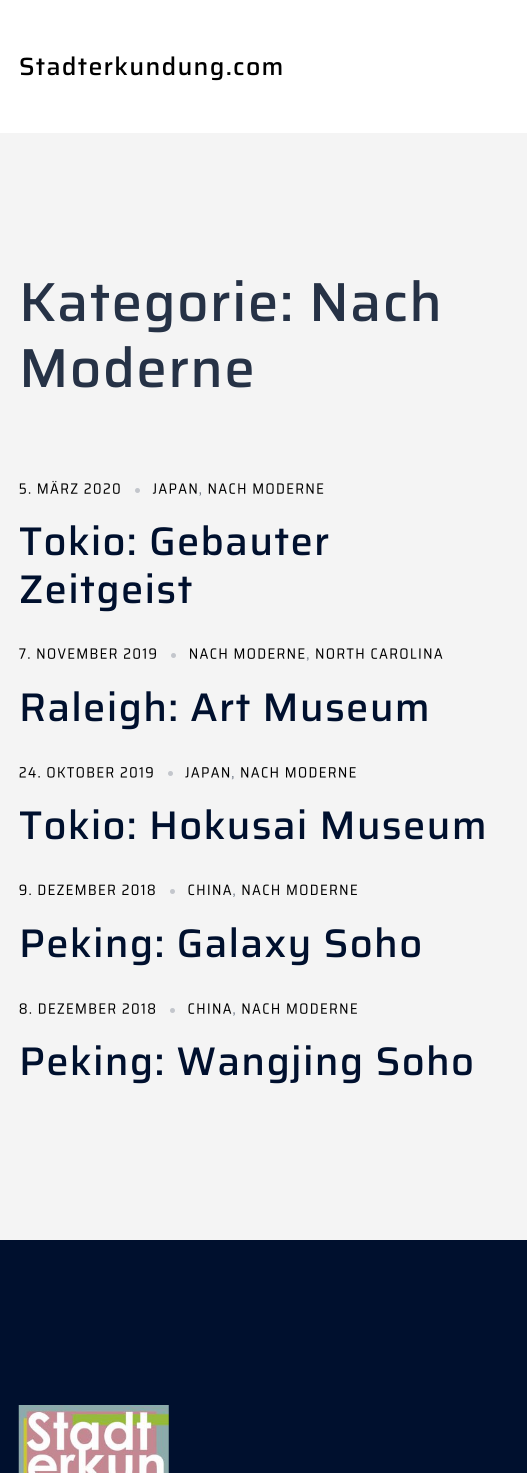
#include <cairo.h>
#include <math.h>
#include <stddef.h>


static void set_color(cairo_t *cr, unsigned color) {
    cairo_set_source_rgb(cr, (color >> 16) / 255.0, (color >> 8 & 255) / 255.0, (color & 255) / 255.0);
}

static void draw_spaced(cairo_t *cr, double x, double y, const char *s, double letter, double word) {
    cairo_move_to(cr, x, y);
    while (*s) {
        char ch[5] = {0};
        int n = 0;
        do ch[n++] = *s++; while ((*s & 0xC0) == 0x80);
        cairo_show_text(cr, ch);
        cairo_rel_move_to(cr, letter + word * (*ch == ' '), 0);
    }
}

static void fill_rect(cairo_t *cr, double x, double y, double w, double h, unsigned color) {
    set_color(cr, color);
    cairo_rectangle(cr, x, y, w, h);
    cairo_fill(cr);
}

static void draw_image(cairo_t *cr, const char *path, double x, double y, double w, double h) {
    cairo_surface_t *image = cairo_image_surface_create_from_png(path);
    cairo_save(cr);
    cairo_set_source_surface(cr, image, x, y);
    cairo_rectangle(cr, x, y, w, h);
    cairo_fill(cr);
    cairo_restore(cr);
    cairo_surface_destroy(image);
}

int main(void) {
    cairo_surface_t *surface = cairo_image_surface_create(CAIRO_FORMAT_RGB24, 527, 1473);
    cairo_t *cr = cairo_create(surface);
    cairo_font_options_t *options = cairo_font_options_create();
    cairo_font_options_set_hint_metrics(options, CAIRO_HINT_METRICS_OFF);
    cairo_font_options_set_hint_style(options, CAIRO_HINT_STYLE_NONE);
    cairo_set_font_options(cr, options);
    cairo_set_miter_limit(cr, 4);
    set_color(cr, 0xF4F4F4);
    cairo_paint(cr);
    fill_rect(cr, 0, 0, 527, 133, 0xFFFFFF);
    cairo_select_font_face(cr, "Saira Thin", CAIRO_FONT_SLANT_NORMAL, CAIRO_FONT_WEIGHT_NORMAL);
    cairo_set_font_size(cr, 25);
    set_color(cr, 0x000000);
    draw_spaced(cr, 19, 75, "Stadterkundung.com", 1.25, 0);
    cairo_set_font_size(cr, 55);
    set_color(cr, 0x263246);
    draw_spaced(cr, 19, 321, "Kategorie: Nach", 1.25, 0);
    draw_spaced(cr, 19, 387, "Moderne", 1.25, 0);
    draw_image(cr, "assets/img1.png", 19, 480, 101, 14);
    set_color(cr, 0xC3C6CC);
    cairo_arc(cr, 137.5, 490.5, 2.5, 0, 2 * M_PI);
    cairo_fill(cr);
    draw_image(cr, "assets/img2.png", 152, 483, 45, 11);
    draw_image(cr, "assets/img3.png", 199, 492, 2, 4);
    draw_image(cr, "assets/img4.png", 208, 483, 116, 11);
    cairo_set_font_size(cr, 40);
    set_color(cr, 0x00102E);
    draw_spaced(cr, 19, 555, "Tokio: Gebauter", 1.25, 0);
    draw_spaced(cr, 19, 603, "Zeitgeist", 1.25, 0);
    draw_image(cr, "assets/img5.png", 19, 648, 137, 11);
    set_color(cr, 0xC3C6CC);
    cairo_arc(cr, 173.5, 655.5, 2.5, 0, 2 * M_PI);
    cairo_fill(cr);
    draw_image(cr, "assets/img6.png", 190, 648, 115, 11);
    draw_image(cr, "assets/img7.png", 306, 657, 3, 4);
    draw_image(cr, "assets/img8.png", 316, 648, 127, 11);
    set_color(cr, 0x00102E);
    draw_spaced(cr, 19, 721, "Raleigh: Art Museum", 1.25, 0);
    draw_image(cr, "assets/img9.png", 19, 767, 134, 11);
    set_color(cr, 0xC3C6CC);
    cairo_arc(cr, 170.5, 773.5, 2.5, 0, 2 * M_PI);
    cairo_fill(cr);
    draw_image(cr, "assets/img10.png", 185, 767, 45, 11);
    draw_image(cr, "assets/img11.png", 231, 776, 3, 4);
    draw_image(cr, "assets/img12.png", 241, 767, 115, 11);
    set_color(cr, 0x00102E);
    draw_spaced(cr, 19, 839, "Tokio: Hokusai Museum", 1.25, 0);
    draw_image(cr, "assets/img13.png", 19, 884, 136, 12);
    set_color(cr, 0xC3C6CC);
    cairo_arc(cr, 172.5, 891.5, 2.5, 0, 2 * M_PI);
    cairo_fill(cr);
    draw_image(cr, "assets/img14.png", 188, 884, 44, 12);
    draw_image(cr, "assets/img15.png", 233, 893, 2, 4);
    draw_image(cr, "assets/img16.png", 242, 884, 115, 12);
    set_color(cr, 0x00102E);
    draw_spaced(cr, 19, 957, "Peking: Galaxy Soho", 1.25, 0);
    draw_image(cr, "assets/img17.png", 19, 1003, 137, 11);
    set_color(cr, 0xC3C6CC);
    cairo_arc(cr, 172.5, 1010.5, 2.5, 0, 2 * M_PI);
    cairo_fill(cr);
    draw_image(cr, "assets/img18.png", 188, 1003, 44, 11);
    draw_image(cr, "assets/img19.png", 233, 1012, 2, 4);
    draw_image(cr, "assets/img20.png", 242, 1003, 115, 11);
    set_color(cr, 0x00102E);
    draw_spaced(cr, 19, 1075, "Peking: Wangjing Soho", 1.25, 0);
    fill_rect(cr, 0, 1240, 527, 233, 0x00102E);
    draw_image(cr, "assets/img21.png", 18, 1405, 151, 68);
    cairo_surface_write_to_png(surface, "output.png");
    cairo_font_options_destroy(options);
    cairo_destroy(cr);
    cairo_surface_destroy(surface);
    return 0;
}
